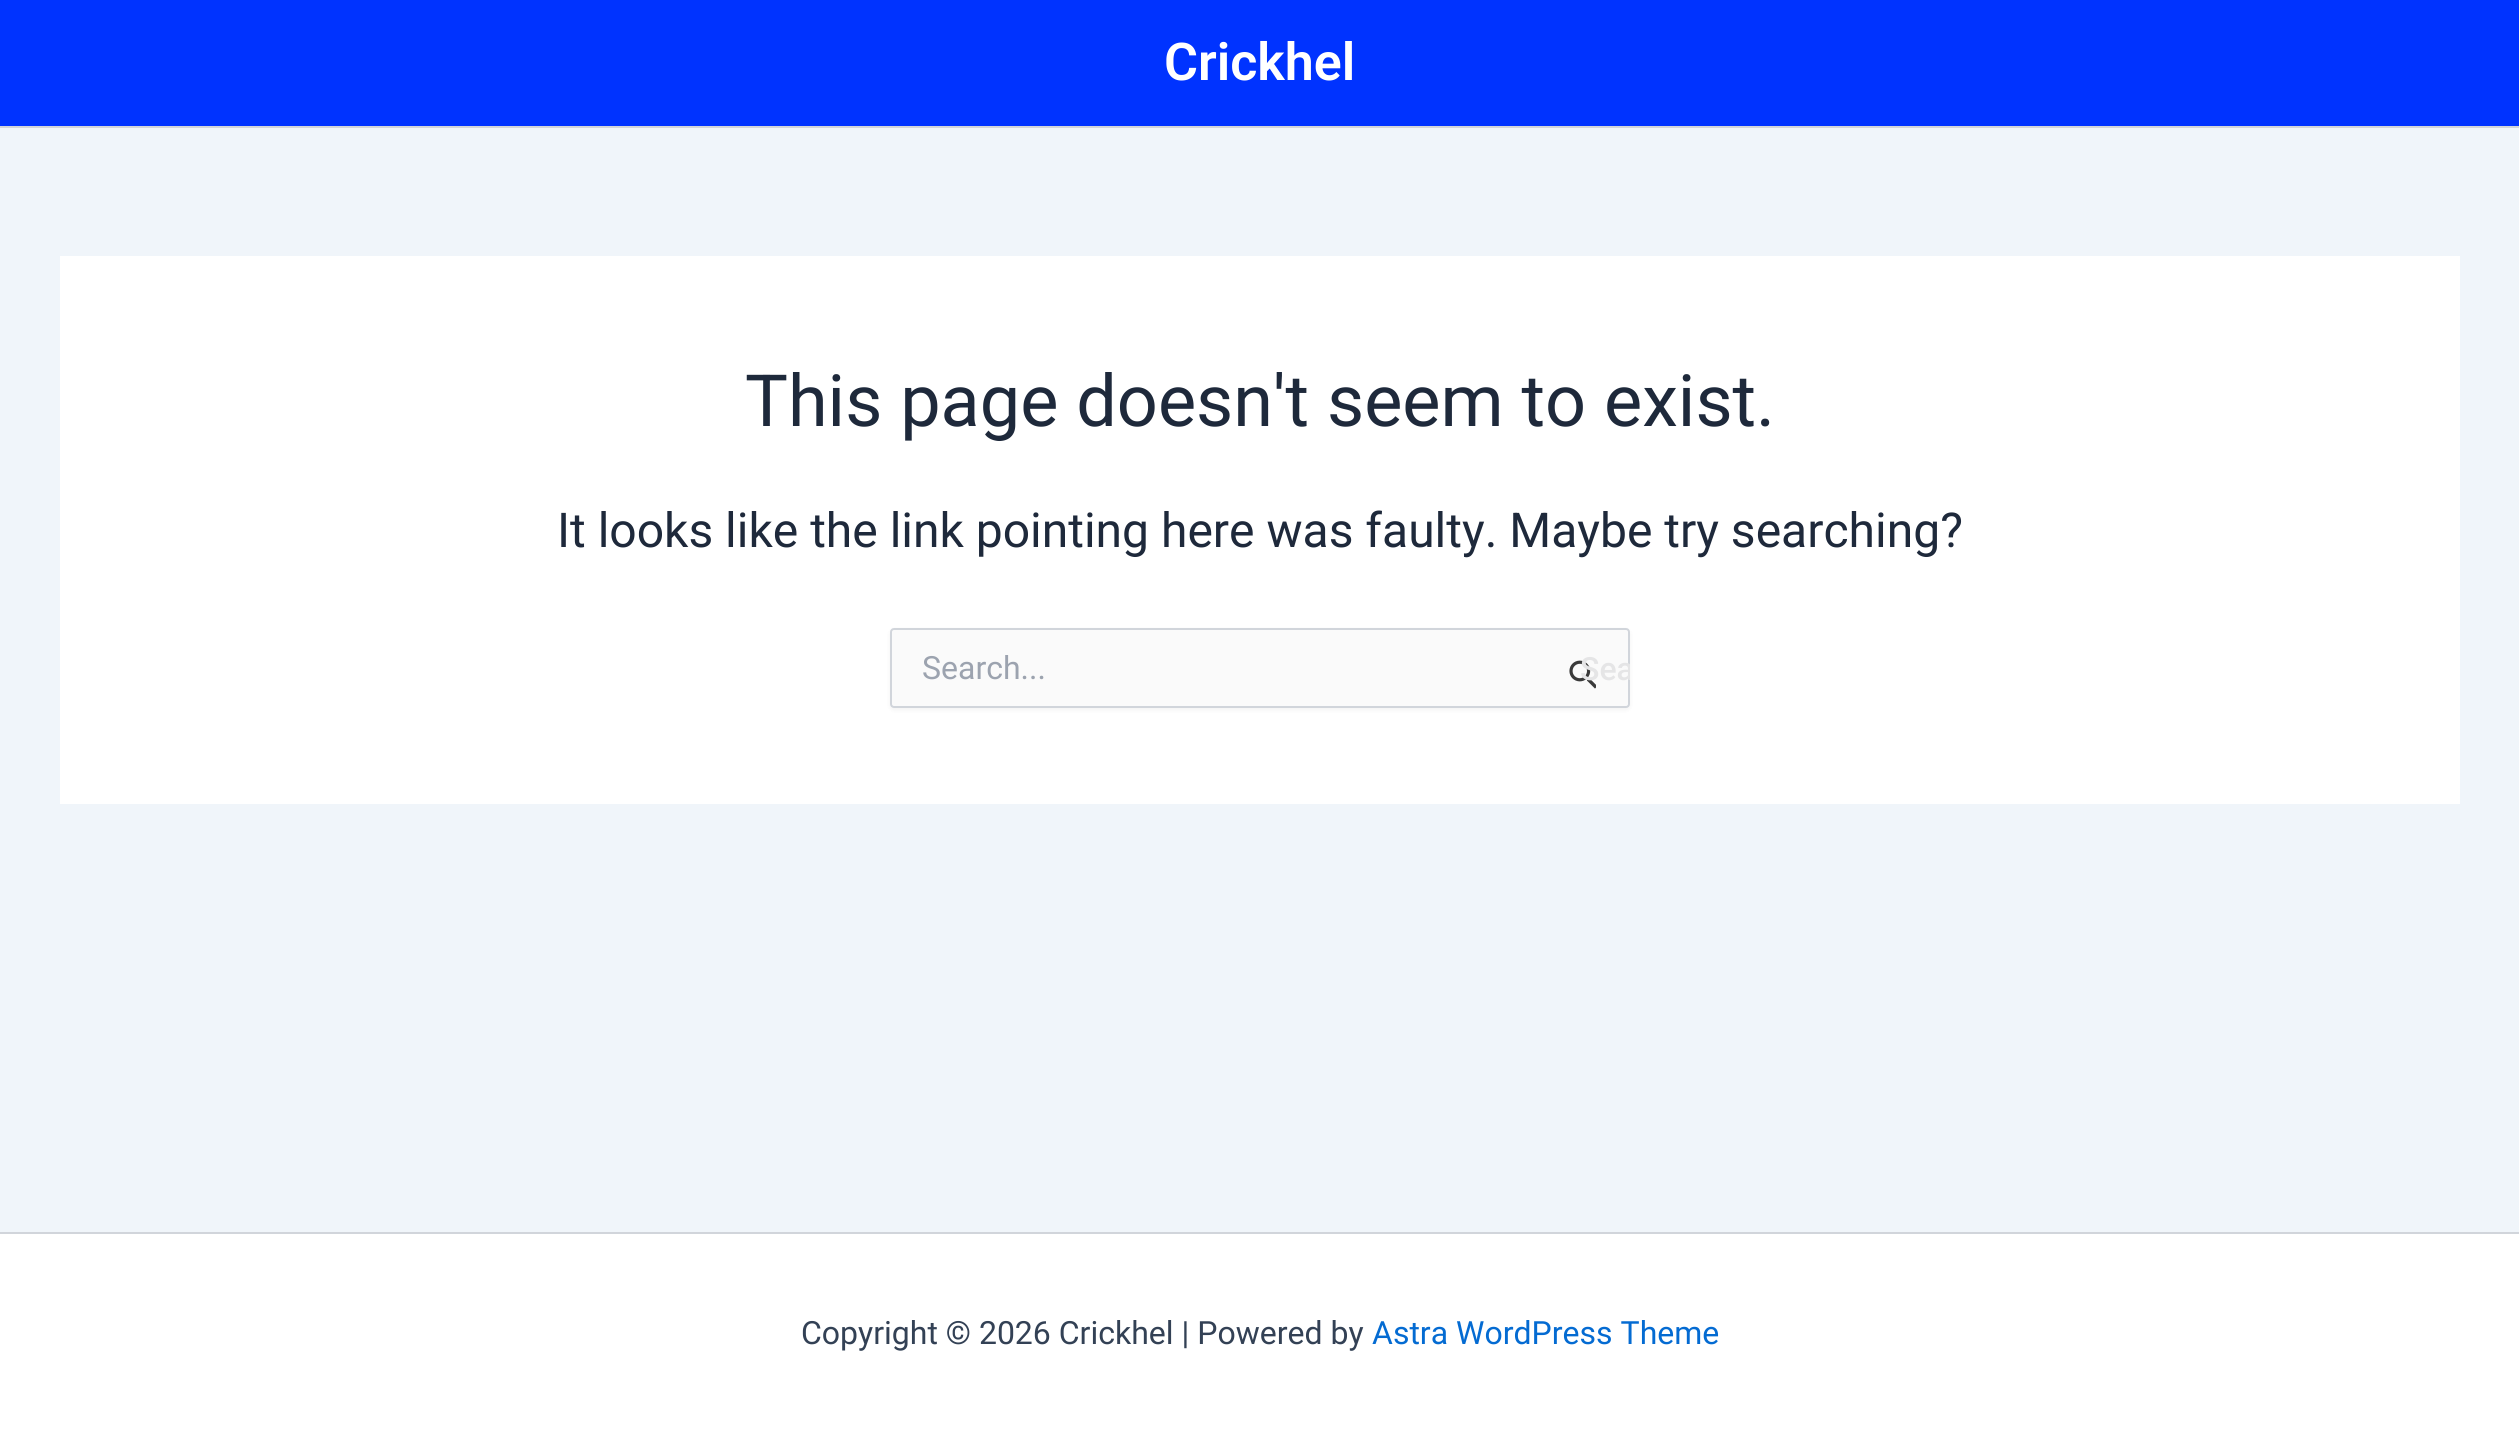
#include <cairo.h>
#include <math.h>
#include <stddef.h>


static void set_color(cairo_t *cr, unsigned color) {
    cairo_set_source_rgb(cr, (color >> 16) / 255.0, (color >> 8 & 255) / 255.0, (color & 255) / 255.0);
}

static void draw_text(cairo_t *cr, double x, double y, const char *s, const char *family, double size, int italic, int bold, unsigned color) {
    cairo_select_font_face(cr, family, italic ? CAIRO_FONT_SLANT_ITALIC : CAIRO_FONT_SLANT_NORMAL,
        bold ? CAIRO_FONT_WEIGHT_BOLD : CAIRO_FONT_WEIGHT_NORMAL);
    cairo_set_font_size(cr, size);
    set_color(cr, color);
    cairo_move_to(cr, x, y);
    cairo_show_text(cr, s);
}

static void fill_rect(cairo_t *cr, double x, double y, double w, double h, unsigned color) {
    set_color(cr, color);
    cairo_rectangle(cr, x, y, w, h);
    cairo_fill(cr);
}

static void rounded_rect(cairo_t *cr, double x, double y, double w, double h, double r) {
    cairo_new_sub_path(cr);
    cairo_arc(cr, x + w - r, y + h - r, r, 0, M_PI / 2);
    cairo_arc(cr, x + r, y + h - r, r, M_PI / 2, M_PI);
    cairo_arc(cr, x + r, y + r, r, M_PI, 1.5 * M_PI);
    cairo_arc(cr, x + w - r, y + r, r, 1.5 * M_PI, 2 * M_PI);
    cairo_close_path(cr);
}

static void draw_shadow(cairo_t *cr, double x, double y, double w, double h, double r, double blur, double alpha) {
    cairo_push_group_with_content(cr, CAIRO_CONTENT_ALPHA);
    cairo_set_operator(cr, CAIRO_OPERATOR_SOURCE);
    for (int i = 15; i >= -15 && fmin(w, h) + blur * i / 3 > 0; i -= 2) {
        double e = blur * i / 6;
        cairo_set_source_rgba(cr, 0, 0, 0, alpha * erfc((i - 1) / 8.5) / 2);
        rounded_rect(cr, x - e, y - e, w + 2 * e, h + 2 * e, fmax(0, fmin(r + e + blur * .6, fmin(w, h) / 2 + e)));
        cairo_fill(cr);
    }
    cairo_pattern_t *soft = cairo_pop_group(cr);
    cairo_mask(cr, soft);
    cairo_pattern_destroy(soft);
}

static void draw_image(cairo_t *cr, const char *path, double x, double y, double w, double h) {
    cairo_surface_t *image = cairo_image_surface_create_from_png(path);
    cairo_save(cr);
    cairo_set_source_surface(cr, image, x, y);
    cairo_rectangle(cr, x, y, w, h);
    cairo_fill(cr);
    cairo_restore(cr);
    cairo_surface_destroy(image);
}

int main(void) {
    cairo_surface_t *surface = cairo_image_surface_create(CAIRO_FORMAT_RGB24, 2519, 1433);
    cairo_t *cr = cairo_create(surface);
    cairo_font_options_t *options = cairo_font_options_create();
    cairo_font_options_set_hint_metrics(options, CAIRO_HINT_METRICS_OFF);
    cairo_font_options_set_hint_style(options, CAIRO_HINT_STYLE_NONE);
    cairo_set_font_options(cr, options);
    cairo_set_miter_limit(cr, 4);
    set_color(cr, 0xF0F5FA);
    cairo_paint(cr);
    fill_rect(cr, 0, 0, 2519, 126, 0x0033FF);
    fill_rect(cr, 0, 126, 2519, 2, 0xD1D5DB);
    draw_text(cr, 1164, 80, "Crickhel", "Roboto SemiBold", 52, 0, 0, 0xFFFFFF);
    fill_rect(cr, 60, 256, 2400, 548, 0xFFFFFF);
    draw_text(cr, 745, 426, "This page doesn't seem to exist.", "Roboto", 72, 0, 0, 0x1E293B);
    draw_text(cr, 557, 547, "It looks like the link pointing here was faulty. Maybe try searching?", "Roboto", 48, 0, 0, 0x1E293B);
    set_color(cr, 0x000000);
    draw_shadow(cr, 890, 630, 740, 80, 4, 2, 0.05);
    set_color(cr, 0xFAFAFA);
    rounded_rect(cr, 891, 629, 738, 78, 3);
    cairo_fill_preserve(cr);
    set_color(cr, 0xD1D5DB);
    cairo_stroke(cr);
    draw_text(cr, 922, 679, "Search...", "Roboto", 32, 0, 0, 0x9CA3AF);
    draw_image(cr, "assets/img1.png", 1569, 660, 27, 29);
    cairo_save(cr);
    rounded_rect(cr, 1540, 628, 90, 84, 4);
    cairo_clip(cr);
    draw_text(cr, 1580, 680, "Sea", "Roboto Medium", 32, 0, 0, 0xE5E5E6);
    cairo_restore(cr);
    fill_rect(cr, 0, 1234, 2519, 199, 0xFFFFFF);
    fill_rect(cr, 0, 1232, 2519, 2, 0xD1D5DB);
    draw_text(cr, 801, 1344, "Copyright © 2026 Crickhel | Powered by", "Roboto", 32, 0, 0, 0x334155);
    draw_text(cr, 1372, 1344, "Astra WordPress Theme", "Roboto", 32, 0, 0, 0x046BD2);
    cairo_surface_write_to_png(surface, "output.png");
    cairo_font_options_destroy(options);
    cairo_destroy(cr);
    cairo_surface_destroy(surface);
    return 0;
}
